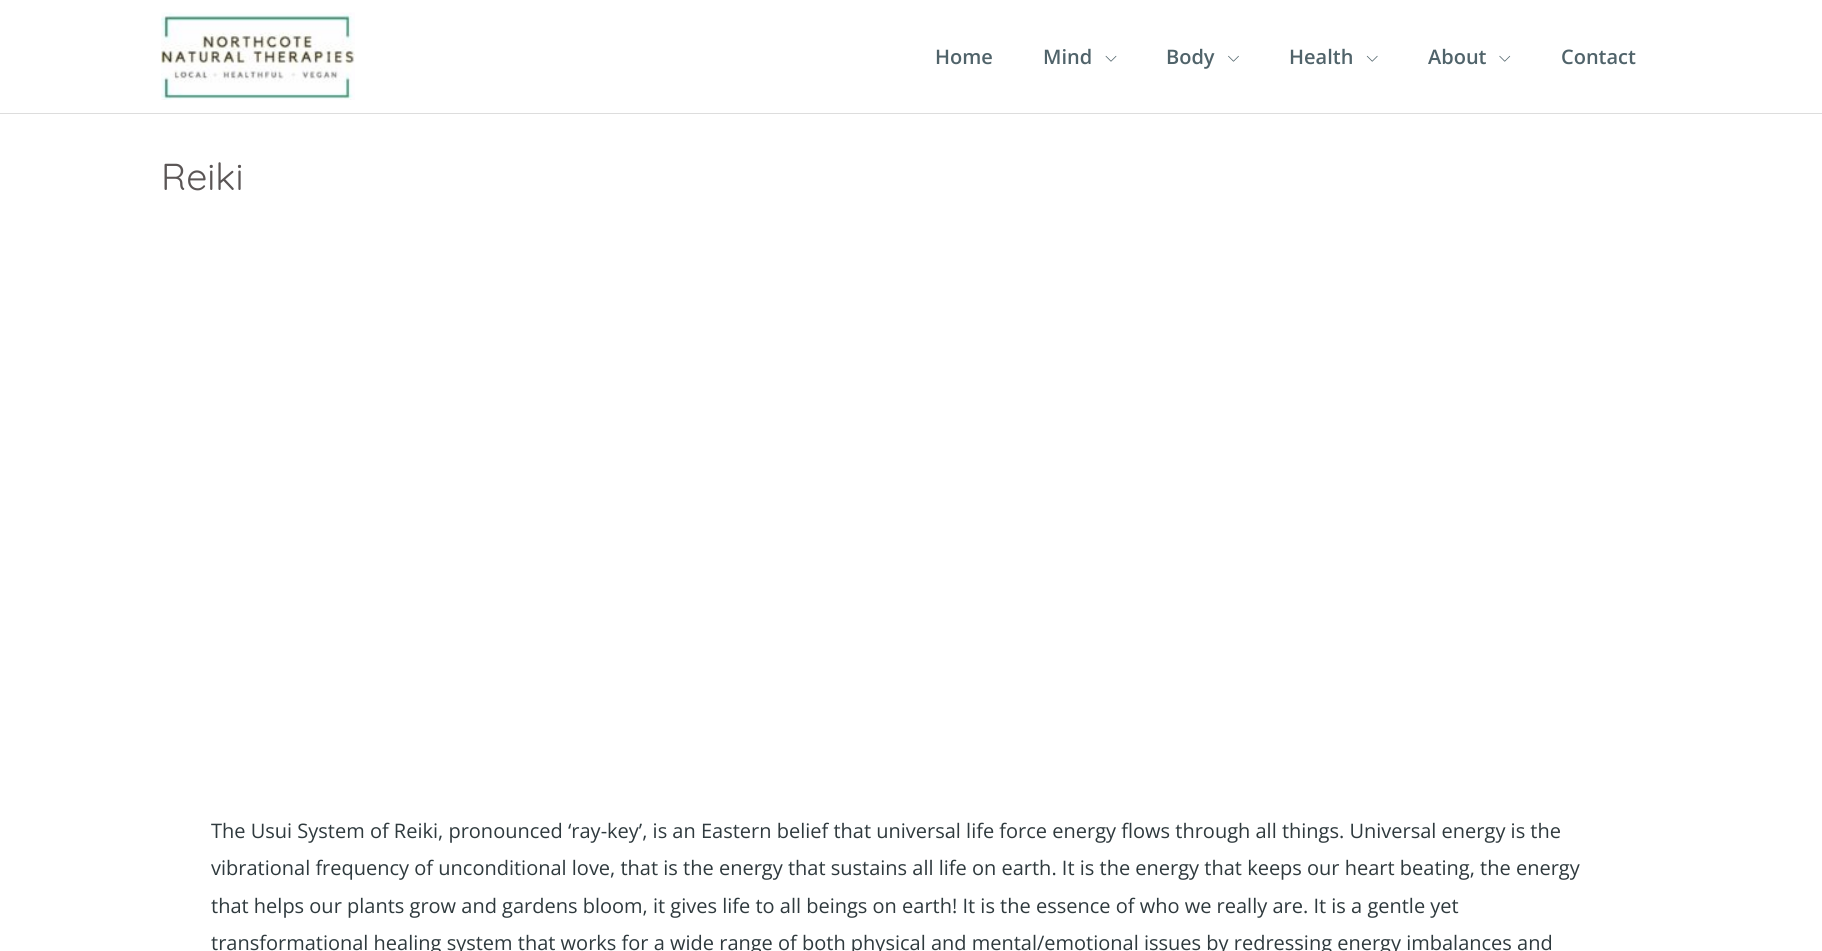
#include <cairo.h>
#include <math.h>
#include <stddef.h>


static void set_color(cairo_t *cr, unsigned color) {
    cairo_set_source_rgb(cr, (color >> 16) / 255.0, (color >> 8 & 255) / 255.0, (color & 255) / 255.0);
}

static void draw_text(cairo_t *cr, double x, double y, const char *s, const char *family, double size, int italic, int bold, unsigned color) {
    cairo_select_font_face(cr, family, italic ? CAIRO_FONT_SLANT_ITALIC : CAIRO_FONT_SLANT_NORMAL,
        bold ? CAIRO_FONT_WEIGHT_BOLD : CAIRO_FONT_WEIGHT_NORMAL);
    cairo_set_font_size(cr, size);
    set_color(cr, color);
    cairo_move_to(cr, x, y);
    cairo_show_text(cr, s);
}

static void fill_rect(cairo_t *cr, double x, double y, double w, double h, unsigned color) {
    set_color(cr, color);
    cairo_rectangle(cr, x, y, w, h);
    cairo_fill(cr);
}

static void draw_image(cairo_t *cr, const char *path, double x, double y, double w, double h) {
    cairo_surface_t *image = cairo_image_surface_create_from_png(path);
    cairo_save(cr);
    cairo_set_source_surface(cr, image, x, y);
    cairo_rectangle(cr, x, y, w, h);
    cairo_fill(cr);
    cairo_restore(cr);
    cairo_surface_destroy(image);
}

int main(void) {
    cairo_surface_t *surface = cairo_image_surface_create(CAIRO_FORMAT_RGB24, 1822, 951);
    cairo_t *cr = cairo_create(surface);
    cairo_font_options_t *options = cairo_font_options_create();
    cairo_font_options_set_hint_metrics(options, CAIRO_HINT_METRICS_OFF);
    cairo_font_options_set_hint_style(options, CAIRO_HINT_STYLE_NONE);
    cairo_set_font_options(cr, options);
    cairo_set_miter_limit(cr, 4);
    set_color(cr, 0xFFFFFF);
    cairo_paint(cr);
    fill_rect(cr, 0, 113, 1822, 1, 0xDDDDDD);
    draw_image(cr, "assets/img1.png", 161, 12, 194, 88);
    draw_text(cr, 935, 64, "Home", "Open Sans SemiBold", 20, 0, 0, 0x50636A);
    draw_text(cr, 1043, 64, "Mind", "Open Sans SemiBold", 20, 0, 0, 0x50636A);
    draw_image(cr, "assets/img2.png", 1105, 55, 12, 7);
    draw_text(cr, 1166, 64, "Body", "Open Sans SemiBold", 20, 0, 0, 0x50636A);
    draw_image(cr, "assets/img3.png", 1228, 55, 11, 7);
    draw_text(cr, 1289, 64, "Health", "Open Sans SemiBold", 20, 0, 0, 0x50636A);
    draw_image(cr, "assets/img4.png", 1366, 55, 12, 7);
    draw_text(cr, 1428, 64, "About", "Open Sans SemiBold", 20, 0, 0, 0x50636A);
    draw_image(cr, "assets/img5.png", 1499, 55, 12, 7);
    draw_text(cr, 1561, 64, "Contact", "Open Sans SemiBold", 20, 0, 0, 0x50636A);
    draw_text(cr, 161, 190, "Reiki", "Quicksand Light", 37.5, 0, 0, 0x5B5656);
    draw_text(cr, 211, 838, "The Usui System of Reiki, pronounced ‘ray-key’, is an Eastern belief that universal life force energy flows through all things. Universal energy is the", "Open Sans", 20, 0, 0, 0x2F3A3E);
    draw_text(cr, 211, 875, "vibrational frequency of unconditional love, that is the energy that sustains all life on earth. It is the energy that keeps our heart beating, the energy", "Open Sans", 20, 0, 0, 0x2F3A3E);
    draw_text(cr, 211, 913, "that helps our plants grow and gardens bloom, it gives life to all beings on earth! It is the essence of who we really are. It is a gentle yet", "Open Sans", 20, 0, 0, 0x2F3A3E);
    draw_text(cr, 211, 950, "transformational healing system that works for a wide range of both physical and mental/emotional issues by redressing energy imbalances and", "Open Sans", 20, 0, 0, 0x2F3A3E);
    cairo_surface_write_to_png(surface, "output.png");
    cairo_font_options_destroy(options);
    cairo_destroy(cr);
    cairo_surface_destroy(surface);
    return 0;
}
